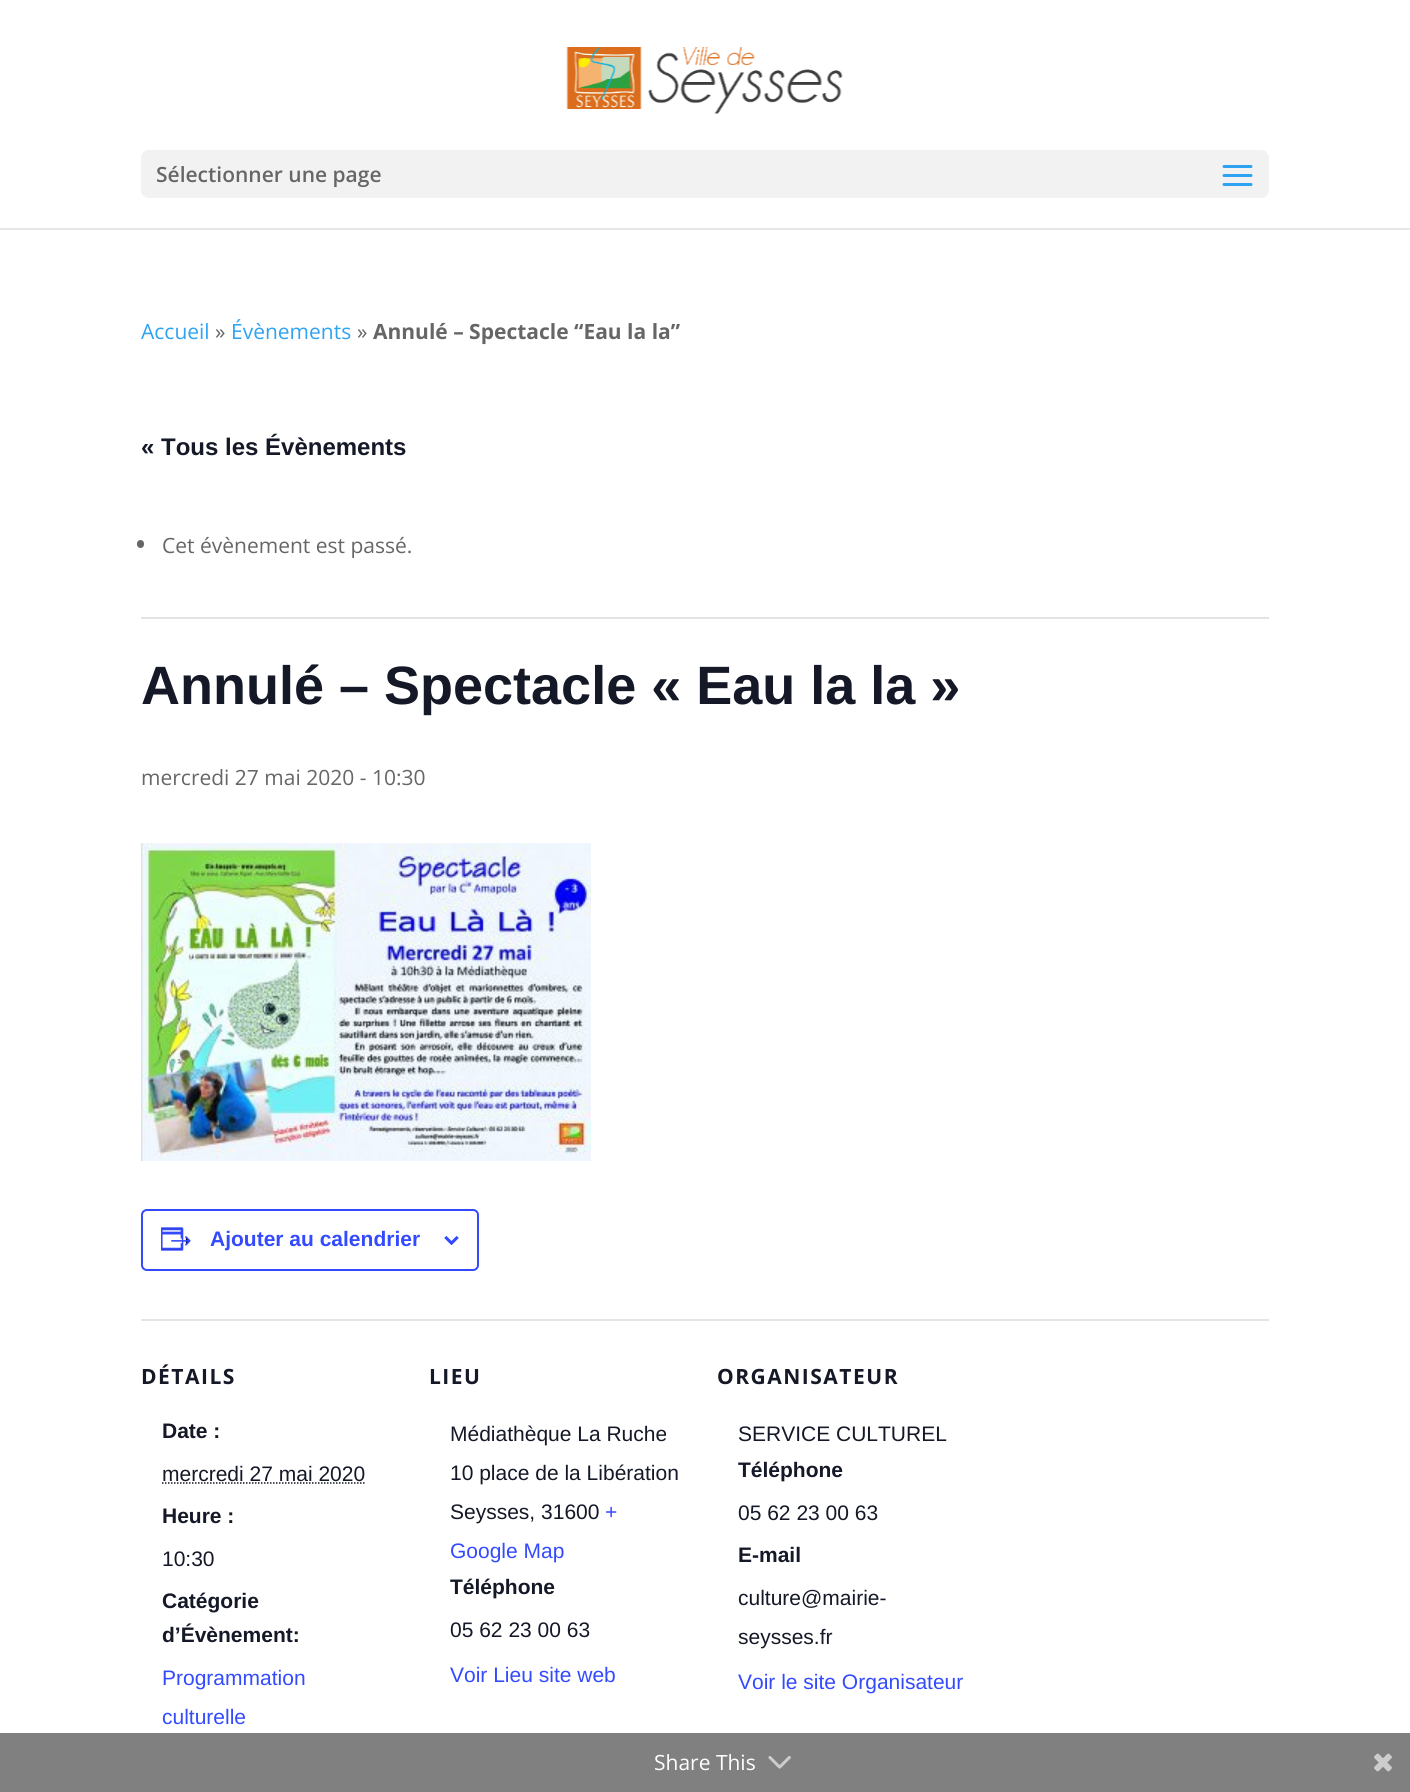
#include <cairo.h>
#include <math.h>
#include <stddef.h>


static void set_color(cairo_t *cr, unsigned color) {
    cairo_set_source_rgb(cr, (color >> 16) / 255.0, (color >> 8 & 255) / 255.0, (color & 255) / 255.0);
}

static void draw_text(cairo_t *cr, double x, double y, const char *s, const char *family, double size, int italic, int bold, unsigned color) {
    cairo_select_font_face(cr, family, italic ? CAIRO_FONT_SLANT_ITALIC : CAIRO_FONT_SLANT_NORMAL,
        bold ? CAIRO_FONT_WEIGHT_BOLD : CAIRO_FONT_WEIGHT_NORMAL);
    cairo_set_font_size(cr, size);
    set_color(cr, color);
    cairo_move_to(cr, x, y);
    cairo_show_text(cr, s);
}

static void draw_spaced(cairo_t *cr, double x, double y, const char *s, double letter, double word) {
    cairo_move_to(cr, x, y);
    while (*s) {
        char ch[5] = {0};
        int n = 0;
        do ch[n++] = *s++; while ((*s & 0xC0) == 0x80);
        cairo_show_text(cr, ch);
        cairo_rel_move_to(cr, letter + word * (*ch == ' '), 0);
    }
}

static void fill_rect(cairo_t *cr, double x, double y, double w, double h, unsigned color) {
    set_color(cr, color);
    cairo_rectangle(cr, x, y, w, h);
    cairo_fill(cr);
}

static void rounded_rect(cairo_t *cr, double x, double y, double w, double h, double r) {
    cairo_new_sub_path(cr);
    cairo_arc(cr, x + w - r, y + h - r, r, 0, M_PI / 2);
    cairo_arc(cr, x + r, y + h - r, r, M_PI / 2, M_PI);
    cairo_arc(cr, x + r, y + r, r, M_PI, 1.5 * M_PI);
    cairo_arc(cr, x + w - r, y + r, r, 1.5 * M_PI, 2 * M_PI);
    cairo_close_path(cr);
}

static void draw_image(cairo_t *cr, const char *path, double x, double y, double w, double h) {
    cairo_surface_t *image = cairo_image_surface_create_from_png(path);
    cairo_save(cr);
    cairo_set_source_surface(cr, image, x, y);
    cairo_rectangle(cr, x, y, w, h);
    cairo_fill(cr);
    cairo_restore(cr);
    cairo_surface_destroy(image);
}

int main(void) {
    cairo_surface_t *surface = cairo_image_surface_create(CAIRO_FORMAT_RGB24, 1410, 1792);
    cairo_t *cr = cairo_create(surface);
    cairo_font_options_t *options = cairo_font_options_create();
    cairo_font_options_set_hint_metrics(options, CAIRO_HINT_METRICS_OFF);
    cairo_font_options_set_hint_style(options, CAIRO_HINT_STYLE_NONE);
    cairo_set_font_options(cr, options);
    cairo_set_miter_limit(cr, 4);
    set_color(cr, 0xFFFFFF);
    cairo_paint(cr);
    fill_rect(cr, 0, 228, 1410, 2, 0xE6E6E6);
    draw_image(cr, "assets/img1.png", 566, 47, 277, 67);
    set_color(cr, 0xF2F2F2);
    rounded_rect(cr, 141, 150, 1128, 48, 8);
    cairo_fill(cr);
    draw_text(cr, 156, 182, "Sélectionner une page", "Open Sans SemiBold", 21, 0, 0, 0x666666);
    draw_image(cr, "assets/img2.png", 1222, 165, 31, 21);
    draw_text(cr, 141, 339, "Accueil", "Open Sans", 21, 0, 0, 0x2EA3F2);
    draw_text(cr, 215, 339, "»", "Open Sans", 21, 0, 0, 0x666666);
    draw_text(cr, 231, 339, "Évènements", "Open Sans", 21, 0, 0, 0x2EA3F2);
    draw_text(cr, 357, 339, "»", "Open Sans", 21, 0, 0, 0x666666);
    draw_text(cr, 373, 339, "Annulé – Spectacle “Eau la la”", "Open Sans", 21, 0, 1, 0x666666);
    draw_text(cr, 141, 455, "« Tous les Évènements", "Liberation Sans", 24, 0, 1, 0x141827);
    fill_rect(cr, 141, 617, 1128, 2, 0xE4E4E4);
    set_color(cr, 0x666666);
    rounded_rect(cr, 137, 540, 7, 8, 3.5);
    cairo_fill(cr);
    draw_text(cr, 162, 553, "Cet évènement est passé.", "Open Sans", 21, 0, 0, 0x666666);
    draw_text(cr, 141, 704, "Annulé – Spectacle « Eau la la »", "Liberation Sans", 54, 0, 1, 0x141827);
    draw_text(cr, 141, 785, "mercredi 27 mai 2020 - 10:30", "Open Sans", 21, 0, 0, 0x666666);
    draw_image(cr, "assets/img3.png", 141, 843, 450, 318);
    rounded_rect(cr, 142, 1210, 336, 60, 5);
    set_color(cr, 0x334AFF);
    cairo_stroke(cr);
    draw_image(cr, "assets/img4.png", 161, 1227, 30, 24);
    draw_text(cr, 210, 1246, "Ajouter au calendrier", "Liberation Sans", 21, 0, 1, 0x334AFF);
    draw_image(cr, "assets/img5.png", 444, 1236, 15, 9);
    fill_rect(cr, 141, 1319, 1128, 2, 0xE4E4E4);
    cairo_select_font_face(cr, "Open Sans", CAIRO_FONT_SLANT_NORMAL, CAIRO_FONT_WEIGHT_BOLD);
    set_color(cr, 0x141827);
    draw_spaced(cr, 141, 1384, "DÉTAILS", 1.5, 0);
    draw_text(cr, 162, 1438, "Date :", "Liberation Sans", 21, 0, 1, 0x141827);
    draw_text(cr, 162, 1481, "mercredi 27 mai 2020", "Liberation Sans", 21, 0, 0, 0x141827);
    cairo_new_path(cr);
    cairo_move_to(cr, 162, 1483);
    cairo_line_to(cr, 365, 1483);
    cairo_set_line_width(cr, 1.5);
    cairo_set_dash(cr, (double[]){1.5, 1.5}, 2, 0);
    cairo_stroke(cr);
    draw_text(cr, 162, 1523, "Heure :", "Liberation Sans", 21, 0, 1, 0x141827);
    draw_text(cr, 162, 1566, "10:30", "Liberation Sans", 21, 0, 0, 0x141827);
    draw_text(cr, 162, 1608, "Catégorie", "Liberation Sans", 21, 0, 1, 0x141827);
    draw_text(cr, 162, 1642, "d’Évènement:", "Liberation Sans", 21, 0, 1, 0x141827);
    draw_text(cr, 162, 1685, "Programmation", "Liberation Sans", 21, 0, 0, 0x334AFF);
    draw_text(cr, 162, 1724, "culturelle", "Liberation Sans", 21, 0, 0, 0x334AFF);
    cairo_select_font_face(cr, "Open Sans", CAIRO_FONT_SLANT_NORMAL, CAIRO_FONT_WEIGHT_BOLD);
    set_color(cr, 0x141827);
    draw_spaced(cr, 429, 1384, "LIEU", 1.5, 0);
    draw_text(cr, 450, 1441, "Médiathèque La Ruche", "Liberation Sans", 21, 0, 0, 0x141827);
    draw_text(cr, 450, 1480, "10 place de la Libération", "Liberation Sans", 21, 0, 0, 0x141827);
    draw_text(cr, 450, 1519, "Seysses, 31600", "Liberation Sans", 21, 0, 0, 0x141827);
    draw_text(cr, 605, 1519, "+", "Liberation Sans", 21, 0, 0, 0x334AFF);
    draw_text(cr, 450, 1558, "Google Map", "Liberation Sans", 21, 0, 0, 0x334AFF);
    draw_text(cr, 450, 1594, "Téléphone", "Liberation Sans", 21, 0, 1, 0x141827);
    draw_text(cr, 450, 1637, "05 62 23 00 63", "Liberation Sans", 21, 0, 0, 0x141827);
    draw_text(cr, 450, 1682, "Voir Lieu site web", "Liberation Sans", 21, 0, 0, 0x334AFF);
    cairo_select_font_face(cr, "Open Sans", CAIRO_FONT_SLANT_NORMAL, CAIRO_FONT_WEIGHT_BOLD);
    set_color(cr, 0x141827);
    draw_spaced(cr, 717, 1384, "ORGANISATEUR", 1.5, 0);
    draw_text(cr, 738, 1441, "SERVICE CULTUREL", "Liberation Sans", 21, 0, 0, 0x141827);
    draw_text(cr, 738, 1477, "Téléphone", "Liberation Sans", 21, 0, 1, 0x141827);
    draw_text(cr, 738, 1520, "05 62 23 00 63", "Liberation Sans", 21, 0, 0, 0x141827);
    draw_text(cr, 738, 1562, "E-mail", "Liberation Sans", 21, 0, 1, 0x141827);
    draw_text(cr, 738, 1605, "culture@mairie-", "Liberation Sans", 21, 0, 0, 0x141827);
    draw_text(cr, 738, 1644, "seysses.fr", "Liberation Sans", 21, 0, 0, 0x141827);
    draw_text(cr, 738, 1689, "Voir le site Organisateur", "Liberation Sans", 21, 0, 0, 0x334AFF);
    fill_rect(cr, 0, 1733, 1410, 59, 0x808080);
    draw_text(cr, 654, 1770, "Share This", "Open Sans", 21, 0, 0, 0xFFFFFF);
    draw_image(cr, "assets/img6.png", 768, 1756, 23, 13);
    draw_image(cr, "assets/img7.png", 1374, 1753, 18, 19);
    cairo_surface_write_to_png(surface, "output.png");
    cairo_font_options_destroy(options);
    cairo_destroy(cr);
    cairo_surface_destroy(surface);
    return 0;
}
